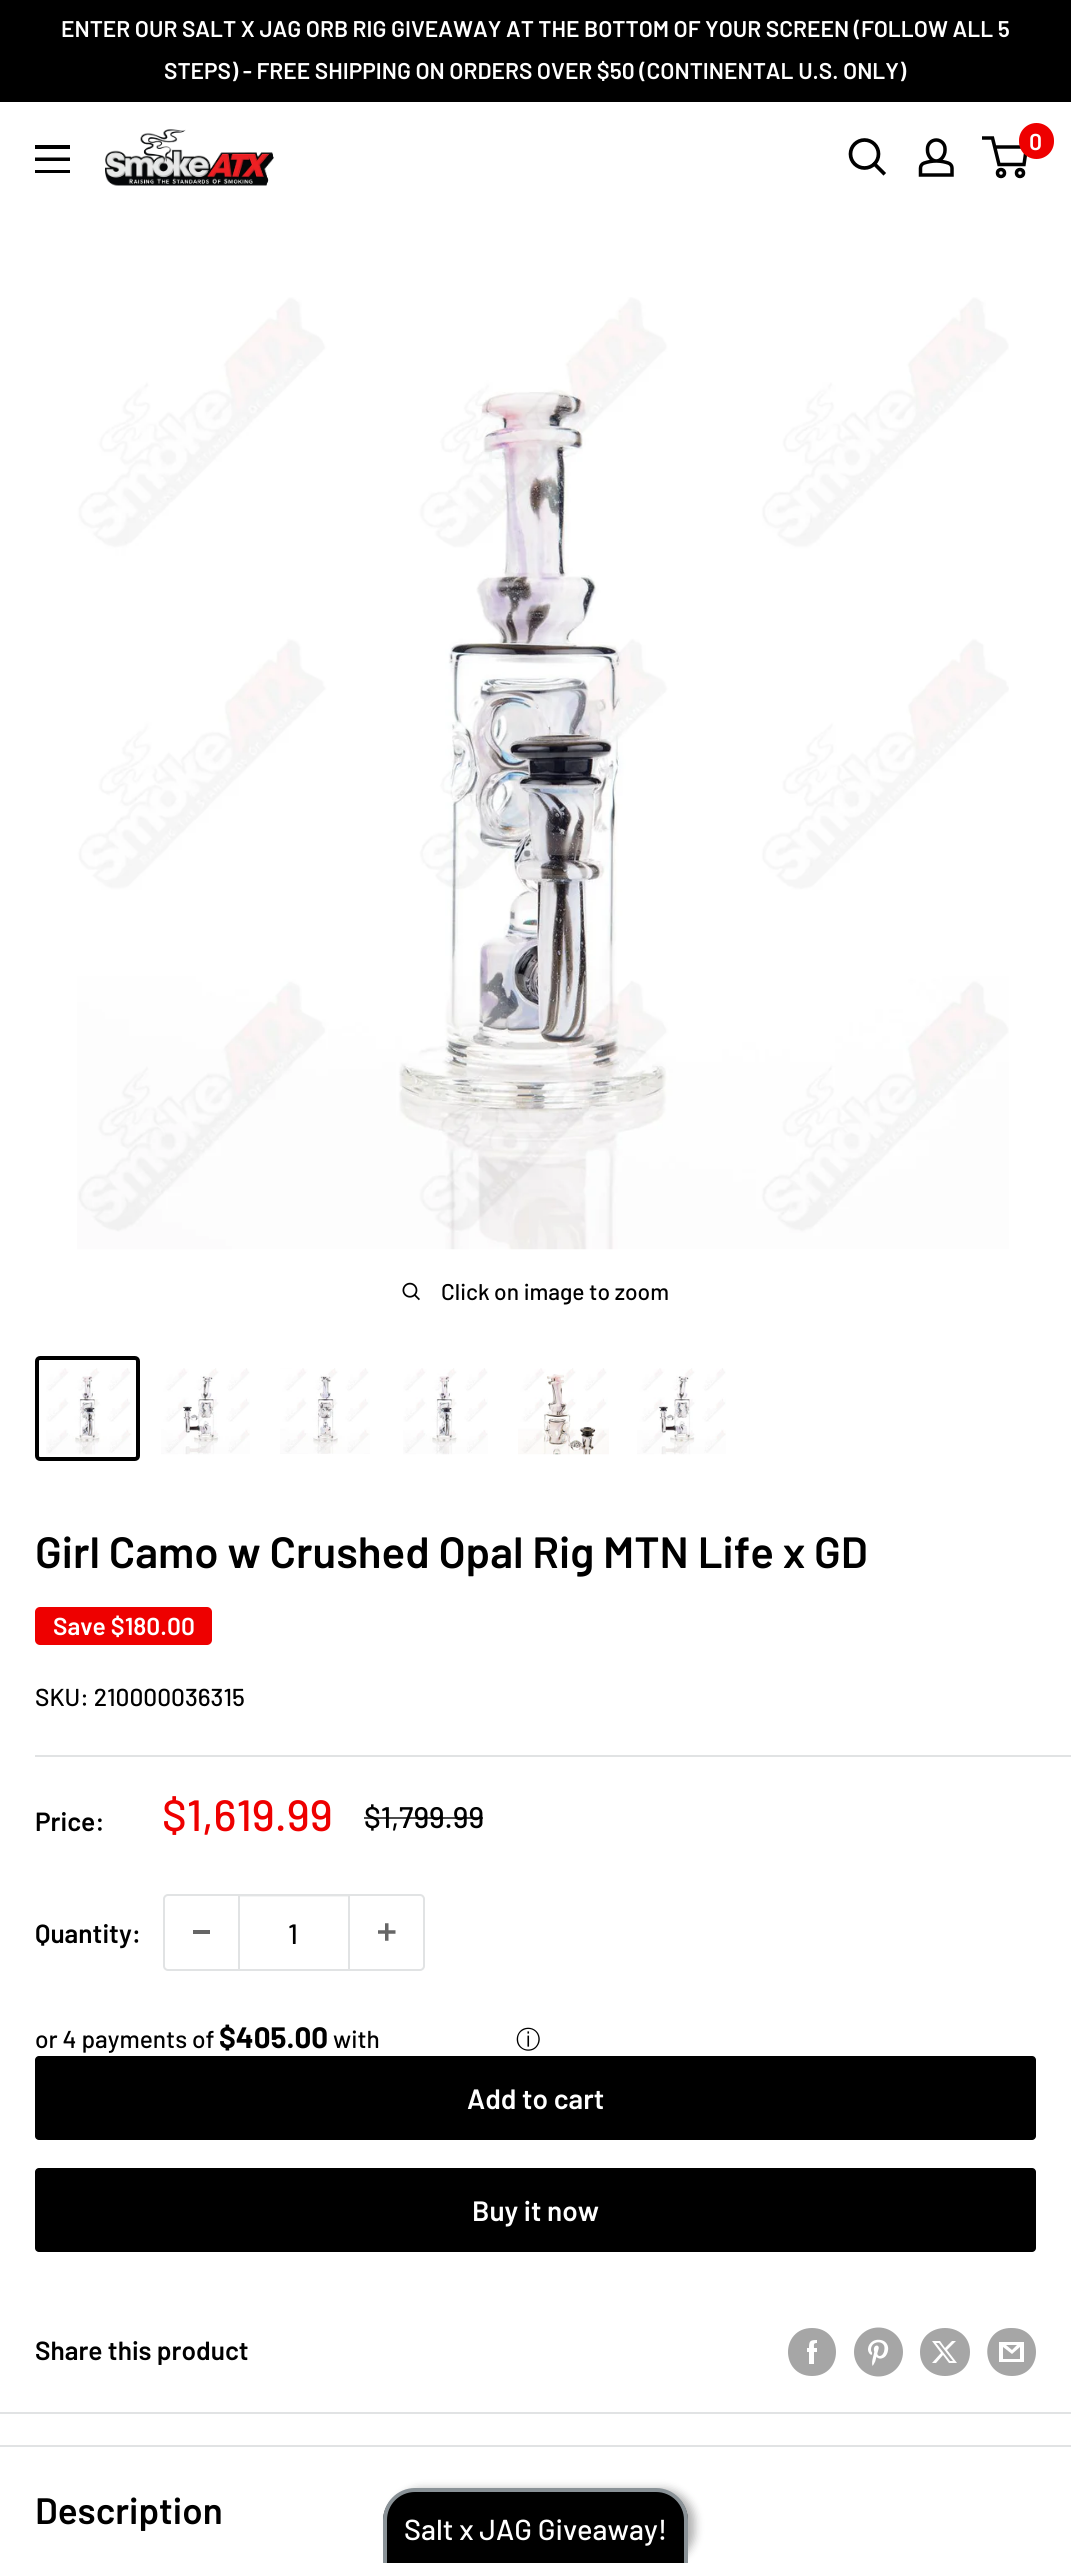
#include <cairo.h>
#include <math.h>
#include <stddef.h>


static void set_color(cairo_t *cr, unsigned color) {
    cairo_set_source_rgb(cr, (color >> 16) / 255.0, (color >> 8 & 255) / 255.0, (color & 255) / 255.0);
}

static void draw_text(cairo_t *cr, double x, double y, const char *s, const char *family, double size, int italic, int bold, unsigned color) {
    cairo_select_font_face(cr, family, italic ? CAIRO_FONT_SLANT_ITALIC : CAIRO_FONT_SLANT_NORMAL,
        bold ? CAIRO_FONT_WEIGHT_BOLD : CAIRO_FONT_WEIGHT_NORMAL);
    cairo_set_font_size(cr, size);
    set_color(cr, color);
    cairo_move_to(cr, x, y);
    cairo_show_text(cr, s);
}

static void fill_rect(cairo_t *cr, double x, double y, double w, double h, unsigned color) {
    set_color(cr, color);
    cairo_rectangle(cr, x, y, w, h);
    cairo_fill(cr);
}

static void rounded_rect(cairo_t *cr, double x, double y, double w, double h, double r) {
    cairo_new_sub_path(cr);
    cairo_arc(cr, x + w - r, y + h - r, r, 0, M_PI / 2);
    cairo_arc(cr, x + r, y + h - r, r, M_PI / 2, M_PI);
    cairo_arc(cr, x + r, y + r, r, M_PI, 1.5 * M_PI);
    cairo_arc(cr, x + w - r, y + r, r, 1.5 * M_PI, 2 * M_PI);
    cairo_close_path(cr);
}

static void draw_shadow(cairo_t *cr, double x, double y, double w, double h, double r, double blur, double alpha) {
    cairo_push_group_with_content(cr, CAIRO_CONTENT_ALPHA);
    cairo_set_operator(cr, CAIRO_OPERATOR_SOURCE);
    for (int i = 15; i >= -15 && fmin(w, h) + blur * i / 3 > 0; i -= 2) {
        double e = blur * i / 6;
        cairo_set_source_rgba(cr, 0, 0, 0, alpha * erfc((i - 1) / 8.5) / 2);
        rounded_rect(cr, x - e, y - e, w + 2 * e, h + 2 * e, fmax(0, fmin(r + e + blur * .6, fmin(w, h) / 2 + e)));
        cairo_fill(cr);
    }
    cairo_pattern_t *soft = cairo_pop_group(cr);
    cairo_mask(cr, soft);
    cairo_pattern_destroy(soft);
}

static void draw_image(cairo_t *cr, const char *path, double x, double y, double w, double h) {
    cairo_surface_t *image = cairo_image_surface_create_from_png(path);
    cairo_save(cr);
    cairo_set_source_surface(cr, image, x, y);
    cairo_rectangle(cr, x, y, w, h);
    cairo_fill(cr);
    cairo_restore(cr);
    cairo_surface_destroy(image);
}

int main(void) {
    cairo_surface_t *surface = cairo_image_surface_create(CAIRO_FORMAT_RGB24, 1071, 2563);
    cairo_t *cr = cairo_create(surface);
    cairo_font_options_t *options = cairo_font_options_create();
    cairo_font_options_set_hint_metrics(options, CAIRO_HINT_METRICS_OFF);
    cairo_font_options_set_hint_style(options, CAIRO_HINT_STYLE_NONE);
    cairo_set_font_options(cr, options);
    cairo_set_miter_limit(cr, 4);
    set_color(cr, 0xFFFFFF);
    cairo_paint(cr);
    fill_rect(cr, 0, 0, 1071, 102, 0x000000);
    draw_text(cr, 61, 37, "ENTER OUR SALT X JAG ORB RIG GIVEAWAY AT THE BOTTOM OF YOUR SCREEN (FOLLOW ALL 5", "Barlow SemiBold", 22.75, 0, 0, 0xFFFFFF);
    draw_text(cr, 164, 79, "STEPS) - FREE SHIPPING ON ORDERS OVER $50 (CONTINENTAL U.S. ONLY)", "Barlow SemiBold", 22.75, 0, 0, 0xFFFFFF);
    draw_image(cr, "assets/img1.png", 105, 129, 169, 57);
    cairo_new_path(cr);
    cairo_move_to(cr, 883.5, 173);
    cairo_line_to(cr, 874.5, 164);
    set_color(cr, 0x000000);
    cairo_set_line_width(cr, 3.7);
    cairo_set_line_cap(cr, CAIRO_LINE_CAP_SQUARE);
    cairo_stroke(cr);
    cairo_arc(cr, 864.5, 154, 14, 0, 2 * M_PI);
    cairo_set_line_cap(cr, CAIRO_LINE_CAP_BUTT);
    cairo_stroke(cr);
    draw_image(cr, "assets/img2.png", 918, 138, 36, 39);
    cairo_arc(cr, 1001, 173, 3.5, 0, 2 * M_PI);
    cairo_set_line_width(cr, 3.5);
    cairo_stroke(cr);
    cairo_arc(cr, 1020, 173, 3.5, 0, 2 * M_PI);
    cairo_stroke(cr);
    cairo_new_path(cr);
    cairo_move_to(cr, 994.5, 147);
    cairo_line_to(cr, 1026.5, 147);
    cairo_line_to(cr, 1024, 164.5);
    cairo_line_to(cr, 999, 164.5);
    cairo_line_to(cr, 992.5, 138);
    cairo_line_to(cr, 982, 138);
    cairo_stroke(cr);
    set_color(cr, 0xEE0000);
    rounded_rect(cr, 1019, 123, 35, 36, 17.5);
    cairo_fill(cr);
    draw_text(cr, 1029, 150, "0", "Barlow SemiBold", 23, 0, 0, 0xFFFFFF);
    set_color(cr, 0x000000);
    cairo_set_fill_rule(cr, CAIRO_FILL_RULE_EVEN_ODD);
    cairo_new_path(cr);
    cairo_move_to(cr, 35, 170);
    cairo_line_to(cr, 70, 170);
    cairo_line_to(cr, 70, 173);
    cairo_line_to(cr, 35, 173);
    cairo_close_path(cr);
    cairo_move_to(cr, 35, 145);
    cairo_line_to(cr, 70, 145);
    cairo_line_to(cr, 70, 149);
    cairo_line_to(cr, 35, 149);
    cairo_close_path(cr);
    cairo_move_to(cr, 35, 157.5);
    cairo_line_to(cr, 70, 157.5);
    cairo_line_to(cr, 70, 161);
    cairo_line_to(cr, 35, 161);
    cairo_close_path(cr);
    cairo_fill(cr);
    draw_image(cr, "assets/img3.png", 77, 297, 932, 953);
    draw_image(cr, "assets/img4.png", 402, 1282, 18, 19);
    draw_text(cr, 441, 1300, "Click on image to zoom", "Barlow Medium", 22.75, 0, 0, 0x000000);
    rounded_rect(cr, 37, 1358, 101, 101, 3);
    cairo_set_line_width(cr, 4);
    cairo_stroke(cr);
    draw_image(cr, "assets/img5.png", 46, 1368, 86, 87);
    draw_image(cr, "assets/img6.png", 161, 1368, 89, 87);
    draw_image(cr, "assets/img7.png", 280, 1368, 90, 86);
    draw_image(cr, "assets/img8.png", 403, 1368, 85, 87);
    draw_image(cr, "assets/img9.png", 518, 1368, 91, 87);
    draw_image(cr, "assets/img10.png", 637, 1368, 89, 87);
    fill_rect(cr, 0, 2412, 1071, 2, 0xE1E3E4);
    draw_text(cr, 35, 1568, "Girl Camo w Crushed Opal Rig MTN Life x GD", "Barlow SemiBold", 43.75, 0, 0, 0x000000);
    set_color(cr, 0xEE0000);
    rounded_rect(cr, 35, 1607, 177, 38, 5);
    cairo_fill(cr);
    draw_text(cr, 53, 1635, "Save $180.00", "Barlow SemiBold", 24.5, 0, 0, 0xFFFFFF);
    draw_text(cr, 35, 1706, "SKU: 210000036315", "Barlow Medium", 24.5, 0, 0, 0x000000);
    fill_rect(cr, 35, 1755, 1036, 2, 0xE1E3E4);
    draw_text(cr, 35, 1831, "Price:", "Barlow SemiBold", 26.25, 0, 0, 0x000000);
    draw_text(cr, 162, 1831, "$1,619.99", "Barlow Medium", 43.75, 0, 0, 0xEE0000);
    draw_text(cr, 364, 1828, "$1,799.99", "Barlow Medium", 29.75, 0, 0, 0x000000);
    cairo_set_source_rgba(cr, 0, 0, 0, 0.7);
    cairo_rectangle(cr, 364, 1817, 119, 2);
    cairo_fill(cr);
    draw_text(cr, 35, 1943, "Quantity:", "Barlow SemiBold", 26.25, 0, 0, 0x000000);
    rounded_rect(cr, 164, 1895, 260, 75, 4);
    set_color(cr, 0xE1E3E4);
    cairo_set_line_width(cr, 2);
    cairo_stroke(cr);
    fill_rect(cr, 193, 1930, 17, 4, 0x666666);
    cairo_set_source_rgba(cr, 0.882, 0.89, 0.894, 0.4);
    cairo_rectangle(cr, 240, 1896, 108, 1);
    cairo_fill(cr);
    fill_rect(cr, 348, 1895, 2, 74, 0xE1E3E4);
    fill_rect(cr, 238, 1895, 2, 74, 0xE1E3E4);
    draw_text(cr, 288, 1944, "1", "Barlow Medium", 28, 0, 0, 0x000000);
    draw_image(cr, "assets/img11.png", 378, 1923, 18, 18);
    draw_text(cr, 35, 2048, "or 4 payments of", "Barlow Medium", 24.5, 0, 0, 0x000000);
    draw_text(cr, 219, 2048, "$405.00", "Barlow", 29.5, 0, 1, 0x000000);
    draw_text(cr, 333, 2048, "with", "Barlow Medium", 24.5, 0, 0, 0x000000);
    draw_text(cr, 516, 2048, "ⓘ", "WenQuanYi Zen Hei Medium", 24.5, 0, 0, 0x000000);
    rounded_rect(cr, 35, 2056, 1001, 84, 4);
    cairo_fill(cr);
    draw_text(cr, 467, 2109, "Add to cart", "Barlow SemiBold", 28, 0, 0, 0xFFFFFF);
    set_color(cr, 0x000000);
    rounded_rect(cr, 35, 2168, 1001, 84, 4);
    cairo_fill(cr);
    draw_text(cr, 472, 2221, "Buy it now", "Barlow SemiBold", 28, 0, 0, 0xFFFFFF);
    draw_text(cr, 35, 2360, "Share this product", "Barlow SemiBold", 26.25, 0, 0, 0x000000);
    set_color(cr, 0xA6A6A6);
    cairo_new_path(cr);
    cairo_move_to(cr, 812, 2376);
    cairo_curve_to(cr, 780, 2376, 780, 2328, 812, 2328);
    cairo_curve_to(cr, 844, 2328, 844, 2376, 812, 2376);
    cairo_close_path(cr);
    cairo_move_to(cr, 817, 2348);
    cairo_line_to(cr, 814, 2348);
    cairo_curve_to(cr, 814, 2345, 813, 2343, 817, 2343);
    cairo_line_to(cr, 817, 2340);
    cairo_curve_to(cr, 810, 2340, 809, 2341, 809, 2348);
    cairo_line_to(cr, 807, 2348);
    cairo_line_to(cr, 807, 2352);
    cairo_line_to(cr, 809, 2352);
    cairo_line_to(cr, 809, 2364);
    cairo_line_to(cr, 814, 2364);
    cairo_line_to(cr, 814, 2352);
    cairo_line_to(cr, 817, 2352);
    cairo_close_path(cr);
    cairo_fill(cr);
    draw_image(cr, "assets/img12.png", 854, 2327, 49, 50);
    cairo_new_path(cr);
    cairo_move_to(cr, 970, 2352);
    cairo_curve_to(cr, 970, 2384, 920, 2384, 920, 2352);
    cairo_curve_to(cr, 920, 2320, 970, 2320, 970, 2352);
    cairo_close_path(cr);
    cairo_move_to(cr, 956, 2341);
    cairo_line_to(cr, 952, 2341);
    cairo_line_to(cr, 945, 2348);
    cairo_line_to(cr, 940, 2341);
    cairo_line_to(cr, 932, 2341);
    cairo_line_to(cr, 941, 2353);
    cairo_line_to(cr, 932, 2363);
    cairo_line_to(cr, 936, 2363);
    cairo_line_to(cr, 943, 2355);
    cairo_line_to(cr, 949, 2363);
    cairo_line_to(cr, 957, 2363);
    cairo_line_to(cr, 947, 2350);
    cairo_close_path(cr);
    cairo_move_to(cr, 953, 2361);
    cairo_line_to(cr, 950, 2361);
    cairo_line_to(cr, 936, 2343);
    cairo_line_to(cr, 939, 2343);
    cairo_close_path(cr);
    cairo_fill(cr);
    cairo_set_fill_rule(cr, CAIRO_FILL_RULE_WINDING);
    cairo_new_path(cr);
    cairo_move_to(cr, 1012, 2376);
    cairo_curve_to(cr, 979, 2376, 979, 2327, 1012, 2328);
    cairo_curve_to(cr, 1044, 2328, 1044, 2376, 1012, 2376);
    cairo_close_path(cr);
    cairo_move_to(cr, 1006, 2345);
    cairo_line_to(cr, 1017, 2345);
    cairo_line_to(cr, 1012, 2350);
    cairo_close_path(cr);
    cairo_move_to(cr, 1020, 2347);
    cairo_line_to(cr, 1020, 2359);
    cairo_line_to(cr, 1003, 2359);
    cairo_line_to(cr, 1003, 2347);
    cairo_line_to(cr, 1012, 2354);
    cairo_close_path(cr);
    cairo_move_to(cr, 1024, 2342);
    cairo_line_to(cr, 999, 2342);
    cairo_line_to(cr, 999, 2362);
    cairo_line_to(cr, 1024, 2362);
    cairo_close_path(cr);
    cairo_fill(cr);
    fill_rect(cr, 0, 2445, 1071, 2, 0xE1E3E4);
    draw_text(cr, 35, 2524, "Description", "Barlow SemiBold", 36.75, 0, 0, 0x000000);
    set_color(cr, 0x000000);
    draw_shadow(cr, 390, 2489, 305, 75, 32, 4.5, 0.3);
    set_color(cr, 0x000000);
    cairo_new_path(cr);
    cairo_move_to(cr, 415, 2489);
    cairo_line_to(cr, 656, 2489);
    cairo_curve_to(cr, 673.5, 2489, 688, 2503.5, 688, 2521);
    cairo_line_to(cr, 688, 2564);
    cairo_line_to(cr, 383, 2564);
    cairo_line_to(cr, 383, 2521);
    cairo_curve_to(cr, 383, 2503.5, 397.5, 2489, 415, 2489);
    cairo_close_path(cr);
    cairo_fill(cr);
    set_color(cr, 0x8A9297);
    cairo_set_fill_rule(cr, CAIRO_FILL_RULE_EVEN_ODD);
    cairo_new_path(cr);
    cairo_move_to(cr, 415, 2488);
    cairo_line_to(cr, 656, 2488);
    cairo_curve_to(cr, 674, 2488, 688, 2503, 688, 2520);
    cairo_line_to(cr, 688, 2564);
    cairo_line_to(cr, 383, 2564);
    cairo_line_to(cr, 383, 2520);
    cairo_curve_to(cr, 383, 2503, 397, 2488, 415, 2488);
    cairo_close_path(cr);
    cairo_move_to(cr, 415, 2492);
    cairo_line_to(cr, 656, 2492);
    cairo_curve_to(cr, 672, 2492, 684, 2505, 684, 2520);
    cairo_line_to(cr, 684, 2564);
    cairo_line_to(cr, 387, 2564);
    cairo_line_to(cr, 387, 2520);
    cairo_curve_to(cr, 387, 2505, 399, 2492, 415, 2492);
    cairo_close_path(cr);
    cairo_fill(cr);
    draw_text(cr, 404, 2540, "Salt x JAG Giveaway!", "Barlow Medium", 28.9, 0, 0, 0xFFFFFF);
    cairo_surface_write_to_png(surface, "output.png");
    cairo_font_options_destroy(options);
    cairo_destroy(cr);
    cairo_surface_destroy(surface);
    return 0;
}
